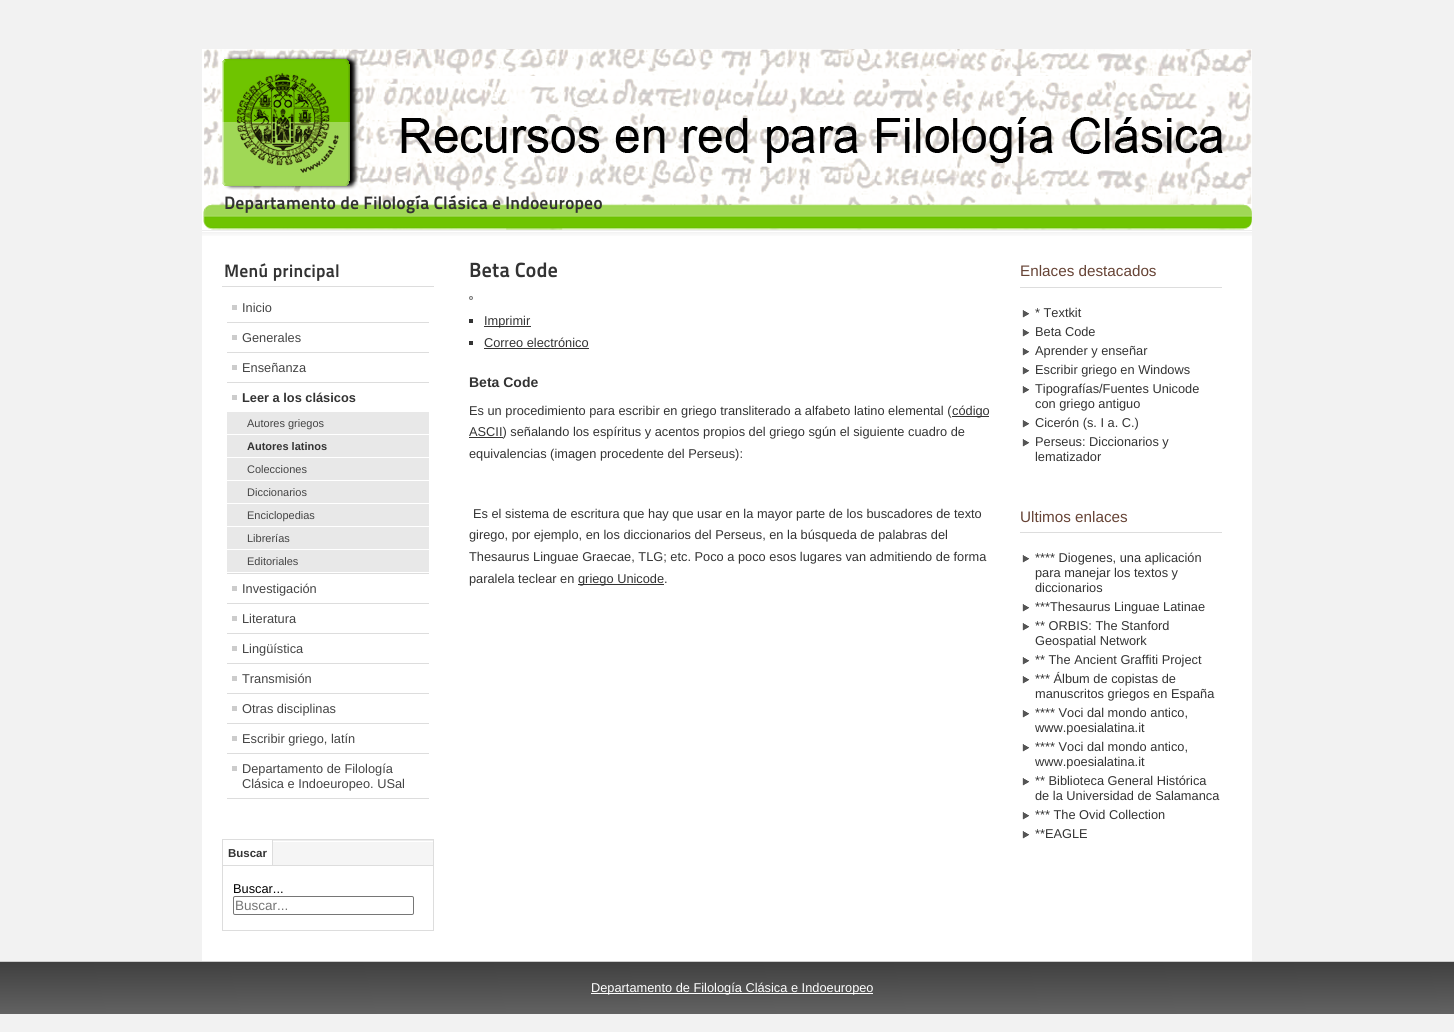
#include <cairo.h>
#include <math.h>
#include <stddef.h>


static void set_color(cairo_t *cr, unsigned color) {
    cairo_set_source_rgb(cr, (color >> 16) / 255.0, (color >> 8 & 255) / 255.0, (color & 255) / 255.0);
}

static void draw_text(cairo_t *cr, double x, double y, const char *s, const char *family, double size, int italic, int bold, unsigned color) {
    cairo_select_font_face(cr, family, italic ? CAIRO_FONT_SLANT_ITALIC : CAIRO_FONT_SLANT_NORMAL,
        bold ? CAIRO_FONT_WEIGHT_BOLD : CAIRO_FONT_WEIGHT_NORMAL);
    cairo_set_font_size(cr, size);
    set_color(cr, color);
    cairo_move_to(cr, x, y);
    cairo_show_text(cr, s);
}

static void fill_rect(cairo_t *cr, double x, double y, double w, double h, unsigned color) {
    set_color(cr, color);
    cairo_rectangle(cr, x, y, w, h);
    cairo_fill(cr);
}

static void rounded_rect(cairo_t *cr, double x, double y, double w, double h, double r) {
    cairo_new_sub_path(cr);
    cairo_arc(cr, x + w - r, y + h - r, r, 0, M_PI / 2);
    cairo_arc(cr, x + r, y + h - r, r, M_PI / 2, M_PI);
    cairo_arc(cr, x + r, y + r, r, M_PI, 1.5 * M_PI);
    cairo_arc(cr, x + w - r, y + r, r, 1.5 * M_PI, 2 * M_PI);
    cairo_close_path(cr);
}

static void draw_image(cairo_t *cr, const char *path, double x, double y, double w, double h) {
    cairo_surface_t *image = cairo_image_surface_create_from_png(path);
    cairo_save(cr);
    cairo_set_source_surface(cr, image, x, y);
    cairo_rectangle(cr, x, y, w, h);
    cairo_fill(cr);
    cairo_restore(cr);
    cairo_surface_destroy(image);
}

int main(void) {
    cairo_surface_t *surface = cairo_image_surface_create(CAIRO_FORMAT_RGB24, 1454, 1032);
    cairo_t *cr = cairo_create(surface);
    cairo_font_options_t *options = cairo_font_options_create();
    cairo_font_options_set_hint_metrics(options, CAIRO_HINT_METRICS_OFF);
    cairo_font_options_set_hint_style(options, CAIRO_HINT_STYLE_NONE);
    cairo_set_font_options(cr, options);
    cairo_set_miter_limit(cr, 4);
    set_color(cr, 0xF2F2F2);
    cairo_paint(cr);
    draw_image(cr, "assets/img1.png", 202, 49, 1050, 181);
    draw_image(cr, "assets/img2.png", 222, 55, 137, 135);
    draw_text(cr, 224, 209, "Departamento de Filología Clásica e Indoeuropeo", "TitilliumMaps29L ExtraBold", 17.9, 0, 0, 0x333333);
    fill_rect(cr, 202, 236, 1050, 725, 0xFFFFFF);
    draw_image(cr, "assets/img3.png", 202, 230, 1050, 6);
    fill_rect(cr, 222, 286, 212, 1, 0xDDDDDD);
    draw_text(cr, 224, 277, "Menú principal", "TitilliumMaps29L ExtraBold", 17.9, 0, 0, 0x333333);
    fill_rect(cr, 227, 322, 202, 1, 0xDDDDDD);
    fill_rect(cr, 232, 305, 5, 5, 0xCCCCCC);
    draw_text(cr, 242, 312, "Inicio", "Liberation Sans", 12.8, 0, 0, 0x444444);
    fill_rect(cr, 227, 352, 202, 1, 0xDDDDDD);
    fill_rect(cr, 232, 335, 5, 5, 0xCCCCCC);
    draw_text(cr, 242, 342, "Generales", "Liberation Sans", 12.8, 0, 0, 0x444444);
    fill_rect(cr, 227, 382, 202, 1, 0xDDDDDD);
    fill_rect(cr, 232, 365, 5, 5, 0xCCCCCC);
    draw_text(cr, 242, 372, "Enseñanza", "Liberation Sans", 12.8, 0, 0, 0x444444);
    fill_rect(cr, 227, 573, 202, 1, 0xDDDDDD);
    fill_rect(cr, 232, 395, 5, 5, 0xCCCCCC);
    draw_text(cr, 242, 402, "Leer a los clásicos", "Liberation Sans", 12.8, 0, 1, 0x333333);
    fill_rect(cr, 227, 412, 202, 22, 0xE8E8E8);
    draw_text(cr, 247, 427, "Autores griegos", "Liberation Sans", 11, 0, 0, 0x444444);
    fill_rect(cr, 227, 435, 202, 22, 0xE8E8E8);
    draw_text(cr, 247, 450, "Autores latinos", "Liberation Sans", 11, 0, 1, 0x333333);
    fill_rect(cr, 227, 458, 202, 22, 0xE8E8E8);
    draw_text(cr, 247, 473, "Colecciones", "Liberation Sans", 11, 0, 0, 0x444444);
    fill_rect(cr, 227, 481, 202, 22, 0xE8E8E8);
    draw_text(cr, 247, 496, "Diccionarios", "Liberation Sans", 11, 0, 0, 0x444444);
    fill_rect(cr, 227, 504, 202, 22, 0xE8E8E8);
    draw_text(cr, 247, 519, "Enciclopedias", "Liberation Sans", 11, 0, 0, 0x444444);
    fill_rect(cr, 227, 527, 202, 22, 0xE8E8E8);
    draw_text(cr, 247, 542, "Librerías", "Liberation Sans", 11, 0, 0, 0x444444);
    fill_rect(cr, 227, 550, 202, 22, 0xE8E8E8);
    draw_text(cr, 247, 565, "Editoriales", "Liberation Sans", 11, 0, 0, 0x444444);
    fill_rect(cr, 227, 603, 202, 1, 0xDDDDDD);
    fill_rect(cr, 232, 586, 5, 5, 0xCCCCCC);
    draw_text(cr, 242, 593, "Investigación", "Liberation Sans", 12.8, 0, 0, 0x444444);
    fill_rect(cr, 227, 633, 202, 1, 0xDDDDDD);
    fill_rect(cr, 232, 616, 5, 5, 0xCCCCCC);
    draw_text(cr, 242, 623, "Literatura", "Liberation Sans", 12.8, 0, 0, 0x444444);
    fill_rect(cr, 227, 663, 202, 1, 0xDDDDDD);
    fill_rect(cr, 232, 646, 5, 5, 0xCCCCCC);
    draw_text(cr, 242, 653, "Lingüística", "Liberation Sans", 12.8, 0, 0, 0x444444);
    fill_rect(cr, 227, 693, 202, 1, 0xDDDDDD);
    fill_rect(cr, 232, 676, 5, 5, 0xCCCCCC);
    draw_text(cr, 242, 683, "Transmisión", "Liberation Sans", 12.8, 0, 0, 0x444444);
    fill_rect(cr, 227, 723, 202, 1, 0xDDDDDD);
    fill_rect(cr, 232, 706, 5, 5, 0xCCCCCC);
    draw_text(cr, 242, 713, "Otras disciplinas", "Liberation Sans", 12.8, 0, 0, 0x444444);
    fill_rect(cr, 227, 753, 202, 1, 0xDDDDDD);
    fill_rect(cr, 232, 736, 5, 5, 0xCCCCCC);
    draw_text(cr, 242, 743, "Escribir griego, latín", "Liberation Sans", 12.8, 0, 0, 0x444444);
    fill_rect(cr, 227, 798, 202, 1, 0xDDDDDD);
    fill_rect(cr, 232, 766, 5, 5, 0xCCCCCC);
    draw_text(cr, 242, 773, "Departamento de Filología", "Liberation Sans", 12.8, 0, 0, 0x444444);
    draw_text(cr, 242, 788, "Clásica e Indoeuropeo. USal", "Liberation Sans", 12.8, 0, 0, 0x444444);
    fill_rect(cr, 273, 842, 160, 23, 0xF5F5F5);
    draw_image(cr, "assets/img4.png", 273, 840, 160, 2);
    fill_rect(cr, 222, 839, 212, 1, 0xDDDDDD);
    fill_rect(cr, 433, 839, 1, 27, 0xDDDDDD);
    fill_rect(cr, 222, 839, 1, 27, 0xDDDDDD);
    fill_rect(cr, 272, 840, 1, 26, 0xDDDDDD);
    draw_text(cr, 228, 857, "Buscar", "Liberation Sans", 11.5, 0, 1, 0x333333);
    cairo_rectangle(cr, 222.5, 865.5, 211, 65);
    set_color(cr, 0xDDDDDD);
    cairo_set_line_width(cr, 1);
    cairo_stroke(cr);
    draw_text(cr, 233, 893, "Buscar...", "Liberation Sans", 12.8, 0, 0, 0x000000);
    rounded_rect(cr, 233.5, 896.5, 180, 18, 1.5);
    set_color(cr, 0x767676);
    cairo_stroke(cr);
    draw_text(cr, 235, 910, "Buscar...", "Liberation Sans", 13.5, 0, 0, 0x757575);
    draw_text(cr, 469, 277, "Beta Code", "TitilliumMaps29L ExtraBold", 20.5, 0, 0, 0x333333);
    set_color(cr, 0xEFEFEF);
    cairo_new_path(cr);
    cairo_arc(cr, 471, 298, 1.5, 0, 2 * M_PI);
    cairo_fill_preserve(cr);
    set_color(cr, 0x767676);
    cairo_stroke(cr);
    fill_rect(cr, 469, 319, 4, 4, 0x333333);
    fill_rect(cr, 484, 326, 47, 1, 0x333333);
    draw_text(cr, 484, 325, "Imprimir", "Liberation Sans", 12.8, 0, 0, 0x333333);
    fill_rect(cr, 469, 341, 4, 4, 0x333333);
    draw_text(cr, 484, 347, "Correo electrónico", "Liberation Sans", 12.8, 0, 0, 0x333333);
    fill_rect(cr, 484, 348, 105, 1, 0x333333);
    draw_text(cr, 469, 387, "Beta Code", "Liberation Sans", 14, 0, 1, 0x333333);
    draw_text(cr, 469, 415, "Es un procedimiento para escribir en griego transliterado a alfabeto latino elemental (", "Liberation Sans", 12.8, 0, 0, 0x333333);
    fill_rect(cr, 952, 416, 37, 1, 0x333333);
    draw_text(cr, 952, 415, "código", "Liberation Sans", 12.8, 0, 0, 0x333333);
    fill_rect(cr, 469, 437, 34, 1, 0x333333);
    draw_text(cr, 469, 436, "ASCII) señalando los espíritus y acentos propios del griego sgún el siguiente cuadro de", "Liberation Sans", 12.8, 0, 0, 0x333333);
    draw_text(cr, 469, 458, "equivalencias (imagen procedente del Perseus):", "Liberation Sans", 12.8, 0, 0, 0x333333);
    draw_text(cr, 473, 518, "Es el sistema de escritura que hay que usar en la mayor parte de los buscadores de texto", "Liberation Sans", 12.8, 0, 0, 0x333333);
    draw_text(cr, 469, 539, "girego, por ejemplo, en los diccionarios del Perseus, en la búsqueda de palabras del", "Liberation Sans", 12.8, 0, 0, 0x333333);
    draw_text(cr, 469, 561, "Thesaurus Linguae Graecae, TLG; etc. Poco a poco esos lugares van admitiendo de forma", "Liberation Sans", 12.8, 0, 0, 0x333333);
    draw_text(cr, 469, 583, "paralela teclear en", "Liberation Sans", 12.8, 0, 0, 0x333333);
    fill_rect(cr, 578, 584, 86, 1, 0x333333);
    draw_text(cr, 578, 583, "griego Unicode.", "Liberation Sans", 12.8, 0, 0, 0x333333);
    fill_rect(cr, 1020, 287, 202, 1, 0xDDDDDD);
    draw_text(cr, 1020, 276, "Enlaces destacados", "Liberation Sans", 15.25, 0, 0, 0x664335);
    draw_image(cr, "assets/img5.png", 1022, 310, 8, 8);
    draw_text(cr, 1035, 317, "* Textkit", "Liberation Sans", 12.8, 0, 0, 0x333333);
    draw_image(cr, "assets/img5.png", 1022, 329, 8, 8);
    draw_text(cr, 1035, 336, "Beta Code", "Liberation Sans", 12.8, 0, 0, 0x333333);
    draw_image(cr, "assets/img5.png", 1022, 348, 8, 8);
    draw_text(cr, 1035, 355, "Aprender y enseñar", "Liberation Sans", 12.8, 0, 0, 0x333333);
    draw_image(cr, "assets/img5.png", 1022, 367, 8, 8);
    draw_text(cr, 1035, 374, "Escribir griego en Windows", "Liberation Sans", 12.8, 0, 0, 0x333333);
    draw_image(cr, "assets/img5.png", 1022, 386, 8, 8);
    draw_text(cr, 1035, 393, "Tipografías/Fuentes Unicode", "Liberation Sans", 12.8, 0, 0, 0x333333);
    draw_text(cr, 1035, 408, "con griego antiguo", "Liberation Sans", 12.8, 0, 0, 0x333333);
    draw_image(cr, "assets/img5.png", 1022, 420, 8, 8);
    draw_text(cr, 1035, 427, "Cicerón (s. I a. C.)", "Liberation Sans", 12.8, 0, 0, 0x333333);
    draw_image(cr, "assets/img5.png", 1022, 439, 8, 8);
    draw_text(cr, 1035, 446, "Perseus: Diccionarios y", "Liberation Sans", 12.8, 0, 0, 0x333333);
    draw_text(cr, 1035, 461, "lematizador", "Liberation Sans", 12.8, 0, 0, 0x333333);
    fill_rect(cr, 1020, 532, 202, 1, 0xDDDDDD);
    draw_text(cr, 1020, 522, "Ultimos enlaces", "Liberation Sans", 15.25, 0, 0, 0x664335);
    draw_image(cr, "assets/img5.png", 1022, 555, 8, 8);
    draw_text(cr, 1035, 562, "**** Diogenes, una aplicación", "Liberation Sans", 12.8, 0, 0, 0x333333);
    draw_text(cr, 1035, 577, "para manejar los textos y", "Liberation Sans", 12.8, 0, 0, 0x333333);
    draw_text(cr, 1035, 592, "diccionarios", "Liberation Sans", 12.8, 0, 0, 0x333333);
    draw_image(cr, "assets/img5.png", 1022, 604, 8, 8);
    draw_text(cr, 1035, 611, "***Thesaurus Linguae Latinae", "Liberation Sans", 12.8, 0, 0, 0x333333);
    draw_image(cr, "assets/img5.png", 1022, 623, 8, 8);
    draw_text(cr, 1035, 630, "** ORBIS: The Stanford", "Liberation Sans", 12.8, 0, 0, 0x333333);
    draw_text(cr, 1035, 645, "Geospatial Network", "Liberation Sans", 12.8, 0, 0, 0x333333);
    draw_image(cr, "assets/img5.png", 1022, 657, 8, 8);
    draw_text(cr, 1035, 664, "** The Ancient Graffiti Project", "Liberation Sans", 12.8, 0, 0, 0x333333);
    draw_image(cr, "assets/img5.png", 1022, 676, 8, 8);
    draw_text(cr, 1035, 683, "*** Álbum de copistas de", "Liberation Sans", 12.8, 0, 0, 0x333333);
    draw_text(cr, 1035, 698, "manuscritos griegos en España", "Liberation Sans", 12.8, 0, 0, 0x333333);
    draw_image(cr, "assets/img5.png", 1022, 710, 8, 8);
    draw_text(cr, 1035, 717, "**** Voci dal mondo antico,", "Liberation Sans", 12.8, 0, 0, 0x333333);
    draw_text(cr, 1035, 732, "www.poesialatina.it", "Liberation Sans", 12.8, 0, 0, 0x333333);
    draw_image(cr, "assets/img5.png", 1022, 744, 8, 8);
    draw_text(cr, 1035, 751, "**** Voci dal mondo antico,", "Liberation Sans", 12.8, 0, 0, 0x333333);
    draw_text(cr, 1035, 766, "www.poesialatina.it", "Liberation Sans", 12.8, 0, 0, 0x333333);
    draw_image(cr, "assets/img5.png", 1022, 778, 8, 8);
    draw_text(cr, 1035, 785, "** Biblioteca General Histórica", "Liberation Sans", 12.8, 0, 0, 0x333333);
    draw_text(cr, 1035, 800, "de la Universidad de Salamanca", "Liberation Sans", 12.8, 0, 0, 0x333333);
    draw_image(cr, "assets/img5.png", 1022, 812, 8, 8);
    draw_text(cr, 1035, 819, "*** The Ovid Collection", "Liberation Sans", 12.8, 0, 0, 0x333333);
    draw_image(cr, "assets/img5.png", 1022, 831, 8, 8);
    draw_text(cr, 1035, 838, "**EAGLE", "Liberation Sans", 12.8, 0, 0, 0x333333);
    fill_rect(cr, 0, 961, 1454, 1, 0xCCCCCC);
    draw_image(cr, "assets/img6.png", 0, 962, 1454, 52);
    fill_rect(cr, 591, 993, 282, 1, 0xFFFFFF);
    draw_text(cr, 591, 992, "Departamento de Filología Clásica e Indoeuropeo", "Liberation Sans", 12.8, 0, 0, 0xFFFFFF);
    cairo_surface_write_to_png(surface, "output.png");
    cairo_font_options_destroy(options);
    cairo_destroy(cr);
    cairo_surface_destroy(surface);
    return 0;
}
